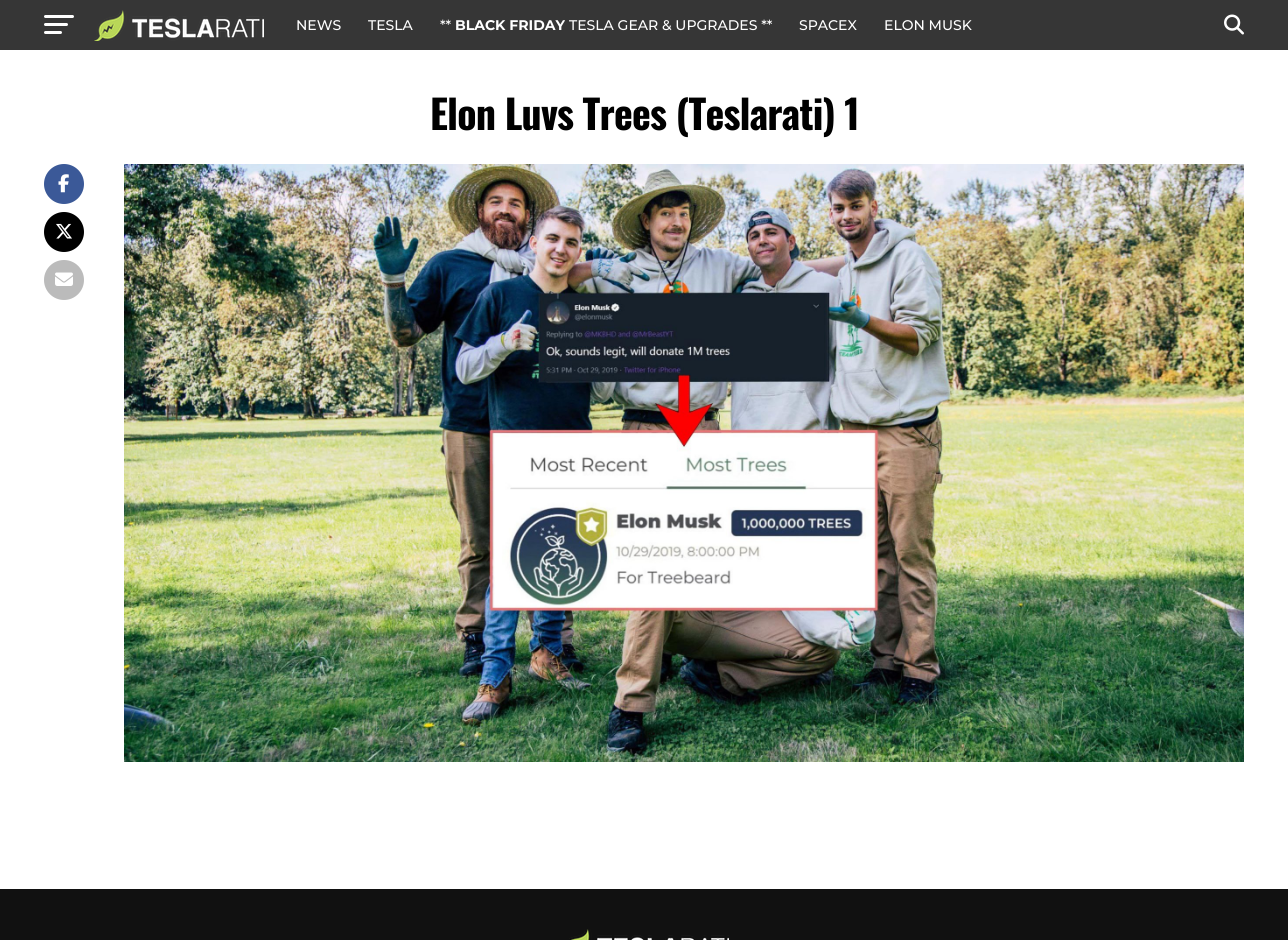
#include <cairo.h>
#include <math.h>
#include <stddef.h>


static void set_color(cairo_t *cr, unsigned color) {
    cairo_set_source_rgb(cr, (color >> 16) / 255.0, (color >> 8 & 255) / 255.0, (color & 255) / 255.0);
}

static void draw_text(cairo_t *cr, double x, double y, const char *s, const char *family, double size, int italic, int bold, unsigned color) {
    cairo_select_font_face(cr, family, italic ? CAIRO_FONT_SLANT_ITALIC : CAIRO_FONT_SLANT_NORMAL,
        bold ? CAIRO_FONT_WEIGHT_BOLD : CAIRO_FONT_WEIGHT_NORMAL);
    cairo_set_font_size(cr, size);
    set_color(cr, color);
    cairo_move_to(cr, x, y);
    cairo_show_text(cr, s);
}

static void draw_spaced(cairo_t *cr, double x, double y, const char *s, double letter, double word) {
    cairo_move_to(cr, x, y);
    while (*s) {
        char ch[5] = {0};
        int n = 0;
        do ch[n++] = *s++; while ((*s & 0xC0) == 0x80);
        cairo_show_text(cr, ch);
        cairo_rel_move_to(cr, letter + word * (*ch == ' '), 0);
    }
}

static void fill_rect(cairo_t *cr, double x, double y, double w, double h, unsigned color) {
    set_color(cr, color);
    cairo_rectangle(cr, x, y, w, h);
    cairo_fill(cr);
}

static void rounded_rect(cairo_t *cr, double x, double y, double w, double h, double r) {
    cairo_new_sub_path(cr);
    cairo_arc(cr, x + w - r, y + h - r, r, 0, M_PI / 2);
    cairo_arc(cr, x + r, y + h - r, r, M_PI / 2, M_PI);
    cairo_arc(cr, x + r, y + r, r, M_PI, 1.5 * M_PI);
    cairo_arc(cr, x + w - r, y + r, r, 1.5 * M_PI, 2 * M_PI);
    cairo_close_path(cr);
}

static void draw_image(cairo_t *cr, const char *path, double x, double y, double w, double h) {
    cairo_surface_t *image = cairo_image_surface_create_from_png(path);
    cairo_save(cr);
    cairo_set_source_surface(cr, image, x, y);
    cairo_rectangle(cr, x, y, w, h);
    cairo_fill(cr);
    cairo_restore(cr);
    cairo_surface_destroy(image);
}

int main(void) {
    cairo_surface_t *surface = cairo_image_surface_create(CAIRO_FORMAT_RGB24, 1288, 940);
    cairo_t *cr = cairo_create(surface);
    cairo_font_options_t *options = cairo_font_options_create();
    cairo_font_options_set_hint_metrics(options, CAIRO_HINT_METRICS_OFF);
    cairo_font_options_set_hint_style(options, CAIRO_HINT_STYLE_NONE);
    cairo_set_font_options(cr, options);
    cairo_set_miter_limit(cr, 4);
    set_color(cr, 0xFFFFFF);
    cairo_paint(cr);
    fill_rect(cr, 0, 0, 1288, 50, 0x363636);
    set_color(cr, 0xFFFFFF);
    rounded_rect(cr, 44, 15, 30, 3, 1.5);
    cairo_fill(cr);
    rounded_rect(cr, 44, 23, 24, 3, 1.5);
    cairo_fill(cr);
    rounded_rect(cr, 44, 31, 18, 3, 1.5);
    cairo_fill(cr);
    draw_image(cr, "assets/img1.png", 94, 10, 170, 31);
    draw_text(cr, 296, 30, "NEWS", "Montserrat Medium", 14, 0, 0, 0xFFFFFF);
    draw_text(cr, 368, 30, "TESLA", "Montserrat Medium", 14, 0, 0, 0xFFFFFF);
    draw_text(cr, 440, 30, "**", "Montserrat Medium", 14, 0, 0, 0xFFFFFF);
    draw_text(cr, 455, 30, "BLACK FRIDAY", "Montserrat", 14, 0, 1, 0xFFFFFF);
    draw_text(cr, 569, 30, "TESLA GEAR & UPGRADES **", "Montserrat Medium", 14, 0, 0, 0xFFFFFF);
    draw_text(cr, 799, 30, "SPACEX", "Montserrat Medium", 14, 0, 0, 0xFFFFFF);
    draw_text(cr, 884, 30, "ELON MUSK", "Montserrat Medium", 14, 0, 0, 0xFFFFFF);
    draw_image(cr, "assets/img2.png", 1224, 14, 20, 21);
    cairo_select_font_face(cr, "Oswald", CAIRO_FONT_SLANT_NORMAL, CAIRO_FONT_WEIGHT_BOLD);
    cairo_set_font_size(cr, 40);
    set_color(cr, 0x000000);
    draw_spaced(cr, 430, 130, "Elon Luvs Trees (Teslarati) 1", -0.8, 0);
    set_color(cr, 0x3B5998);
    cairo_new_path(cr);
    cairo_arc(cr, 64, 184, 20, 0, 2 * M_PI);
    cairo_fill(cr);
    draw_image(cr, "assets/img3.png", 58, 174, 11, 19);
    set_color(cr, 0x000000);
    cairo_arc(cr, 64, 232, 20, 0, 2 * M_PI);
    cairo_fill(cr);
    draw_image(cr, "assets/img4.png", 56, 223, 16, 16);
    set_color(cr, 0xBBBBBB);
    cairo_arc(cr, 64, 280, 20, 0, 2 * M_PI);
    cairo_fill(cr);
    draw_image(cr, "assets/img5.png", 55, 272, 18, 14);
    draw_image(cr, "assets/img6.png", 124, 164, 1120, 598);
    fill_rect(cr, 0, 889, 1288, 51, 0x111111);
    draw_image(cr, "assets/img7.png", 569, 929, 160, 11);
    cairo_surface_write_to_png(surface, "output.png");
    cairo_font_options_destroy(options);
    cairo_destroy(cr);
    cairo_surface_destroy(surface);
    return 0;
}
